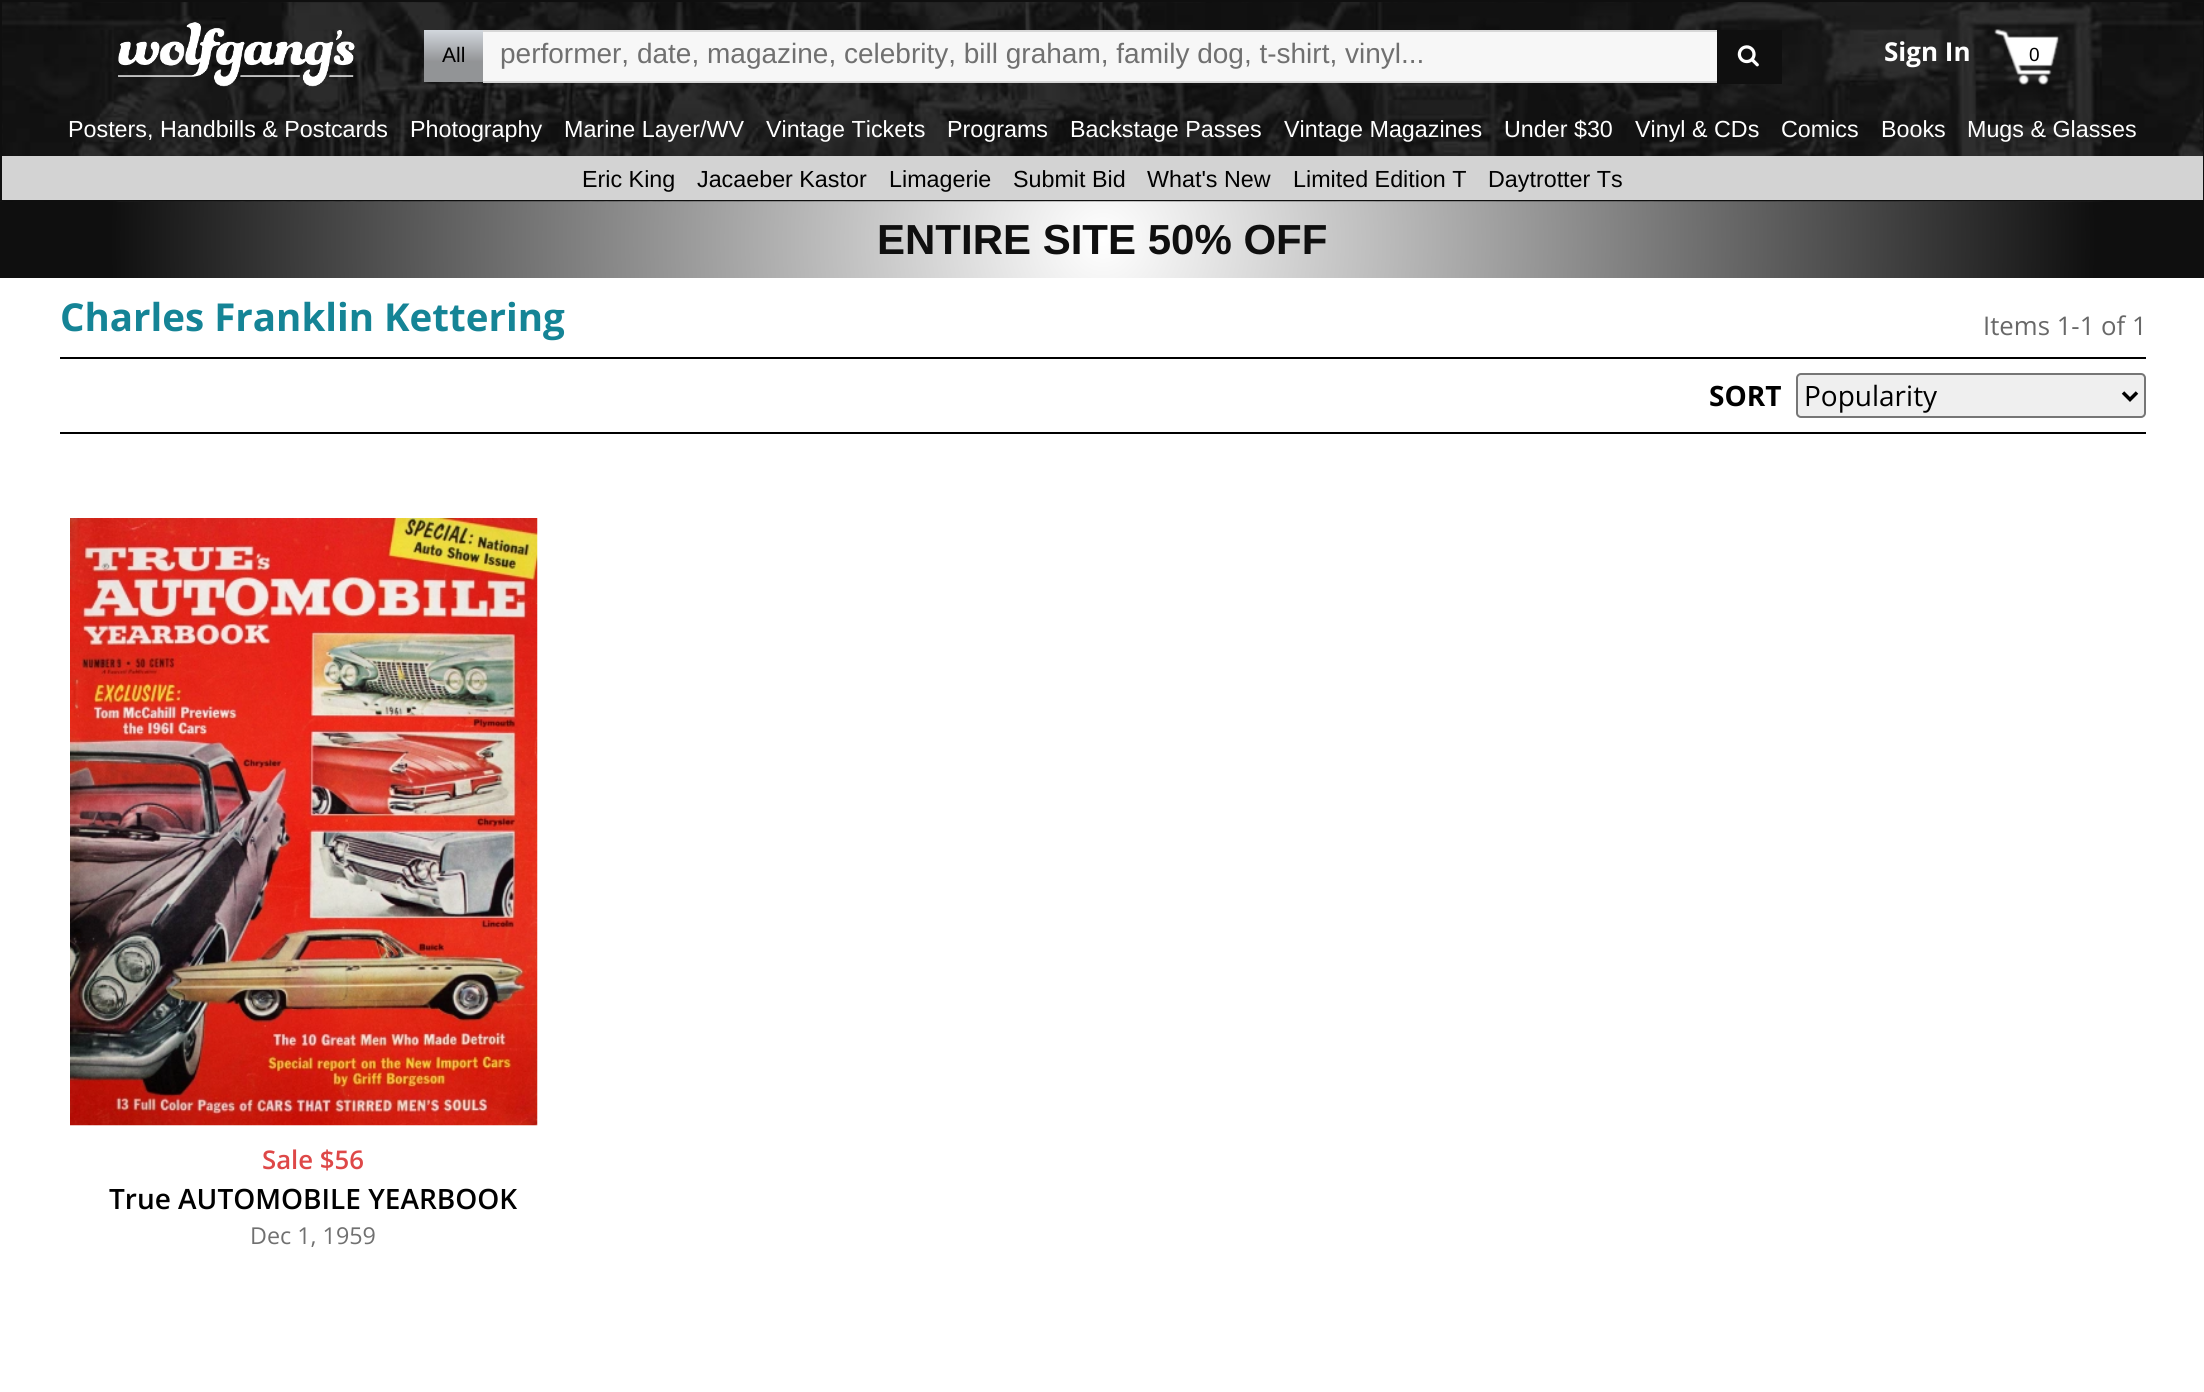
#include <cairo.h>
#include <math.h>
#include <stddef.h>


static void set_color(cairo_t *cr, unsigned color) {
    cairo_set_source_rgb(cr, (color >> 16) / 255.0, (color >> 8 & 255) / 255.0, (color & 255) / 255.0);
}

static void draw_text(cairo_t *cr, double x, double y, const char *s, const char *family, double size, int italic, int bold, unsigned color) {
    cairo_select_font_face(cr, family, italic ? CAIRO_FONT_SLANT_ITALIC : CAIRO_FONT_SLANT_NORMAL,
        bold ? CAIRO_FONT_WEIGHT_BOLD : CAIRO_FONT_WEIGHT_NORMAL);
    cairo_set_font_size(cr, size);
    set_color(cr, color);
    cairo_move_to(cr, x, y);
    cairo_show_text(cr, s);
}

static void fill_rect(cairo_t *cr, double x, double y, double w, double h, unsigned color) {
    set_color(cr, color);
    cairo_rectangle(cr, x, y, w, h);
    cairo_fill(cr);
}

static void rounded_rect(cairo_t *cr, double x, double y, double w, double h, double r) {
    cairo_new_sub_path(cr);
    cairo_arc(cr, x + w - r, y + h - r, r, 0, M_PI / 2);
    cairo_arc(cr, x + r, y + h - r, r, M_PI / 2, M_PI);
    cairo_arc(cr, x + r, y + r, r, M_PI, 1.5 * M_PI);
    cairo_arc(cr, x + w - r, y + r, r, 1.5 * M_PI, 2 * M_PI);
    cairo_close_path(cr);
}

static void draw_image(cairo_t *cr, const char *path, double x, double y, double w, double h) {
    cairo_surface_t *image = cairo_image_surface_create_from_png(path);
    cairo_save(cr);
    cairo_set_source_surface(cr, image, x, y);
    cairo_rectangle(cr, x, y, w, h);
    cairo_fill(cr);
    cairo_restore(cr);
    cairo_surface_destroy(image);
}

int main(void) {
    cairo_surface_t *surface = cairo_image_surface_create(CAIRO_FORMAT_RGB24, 2204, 1392);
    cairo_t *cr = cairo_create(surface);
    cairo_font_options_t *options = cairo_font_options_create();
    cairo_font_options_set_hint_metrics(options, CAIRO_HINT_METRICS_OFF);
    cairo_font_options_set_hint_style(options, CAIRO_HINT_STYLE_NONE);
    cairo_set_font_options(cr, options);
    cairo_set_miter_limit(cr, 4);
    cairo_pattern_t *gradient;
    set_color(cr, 0xFFFFFF);
    cairo_paint(cr);
    gradient = cairo_pattern_create_radial(1103, 240, 0, 1103, 240, 1103);
    cairo_pattern_add_color_stop_rgba(gradient, 0, 1, 1, 1, 1);
    cairo_pattern_add_color_stop_rgba(gradient, 0.9, 0.059, 0.059, 0.059, 1);
    cairo_set_source(cr, gradient);
    cairo_pattern_destroy(gradient);
    cairo_rectangle(cr, 0, 201, 2204, 77);
    cairo_fill(cr);
    draw_image(cr, "assets/img1.png", 0, 2, 2204, 200);
    cairo_rectangle(cr, 1, 1, 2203, 199);
    set_color(cr, 0x0F0F0F);
    cairo_stroke(cr);
    draw_image(cr, "assets/img2.png", 118, 22, 237, 65);
    gradient = cairo_pattern_create_linear(453, 30, 453, 82);
    cairo_pattern_add_color_stop_rgba(gradient, 0, 0.824, 0.843, 0.867, 1);
    cairo_pattern_add_color_stop_rgba(gradient, 0.61, 0.573, 0.58, 0.588, 1);
    cairo_set_source(cr, gradient);
    cairo_pattern_destroy(gradient);
    cairo_rectangle(cr, 424, 30, 59, 52);
    cairo_fill(cr);
    draw_text(cr, 442, 62, "All", "Liberation Sans", 21, 0, 0, 0x000000);
    fill_rect(cr, 483, 32, 1234, 49, 0xF7F7F7);
    fill_rect(cr, 483, 30, 1234, 2, 0xD7D7D7);
    fill_rect(cr, 483, 81, 1234, 2, 0xD7D7D7);
    draw_text(cr, 500, 63, "performer, date, magazine, celebrity, bill graham, family dog, t-shirt, vinyl...", "Liberation Sans", 28, 0, 0, 0x707070);
    fill_rect(cr, 1717, 30, 65, 54, 0x0F0F0F);
    draw_image(cr, "assets/img3.png", 1737, 45, 22, 22);
    draw_image(cr, "assets/img4.png", 1994, 29, 65, 56);
    draw_text(cr, 1884, 61, "Sign In", "Open Sans", 26, 0, 1, 0xFFFFFF);
    draw_text(cr, 2029, 61, "0", "Liberation Sans", 19, 0, 0, 0x000000);
    draw_text(cr, 68, 137, "Posters, Handbills & Postcards", "Liberation Sans", 23.3, 0, 0, 0xFFFFFF);
    draw_text(cr, 410, 137, "Photography", "Liberation Sans", 23.3, 0, 0, 0xFFFFFF);
    draw_text(cr, 564, 137, "Marine Layer/WV", "Liberation Sans", 23.3, 0, 0, 0xFFFFFF);
    draw_text(cr, 766, 137, "Vintage Tickets", "Liberation Sans", 23.3, 0, 0, 0xFFFFFF);
    draw_text(cr, 947, 137, "Programs", "Liberation Sans", 23.3, 0, 0, 0xFFFFFF);
    draw_text(cr, 1070, 137, "Backstage Passes", "Liberation Sans", 23.3, 0, 0, 0xFFFFFF);
    draw_text(cr, 1284, 137, "Vintage Magazines", "Liberation Sans", 23.3, 0, 0, 0xFFFFFF);
    draw_text(cr, 1504, 137, "Under $30", "Liberation Sans", 23.3, 0, 0, 0xFFFFFF);
    draw_text(cr, 1635, 137, "Vinyl & CDs", "Liberation Sans", 23.3, 0, 0, 0xFFFFFF);
    draw_text(cr, 1781, 137, "Comics", "Liberation Sans", 23.3, 0, 0, 0xFFFFFF);
    draw_text(cr, 1881, 137, "Books", "Liberation Sans", 23.3, 0, 0, 0xFFFFFF);
    draw_text(cr, 1967, 137, "Mugs & Glasses", "Liberation Sans", 23.3, 0, 0, 0xFFFFFF);
    fill_rect(cr, 2, 156, 2201, 44, 0xD3D3D3);
    draw_text(cr, 582, 187, "Eric King", "Liberation Sans", 23.3, 0, 0, 0x000000);
    draw_text(cr, 697, 187, "Jacaeber Kastor", "Liberation Sans", 23.3, 0, 0, 0x000000);
    draw_text(cr, 889, 187, "Limagerie", "Liberation Sans", 23.3, 0, 0, 0x000000);
    draw_text(cr, 1013, 187, "Submit Bid", "Liberation Sans", 23.3, 0, 0, 0x000000);
    draw_text(cr, 1147, 187, "What's New", "Liberation Sans", 23.3, 0, 0, 0x000000);
    draw_text(cr, 1293, 187, "Limited Edition T", "Liberation Sans", 23.3, 0, 0, 0x000000);
    draw_text(cr, 1488, 187, "Daytrotter Ts", "Liberation Sans", 23.3, 0, 0, 0x000000);
    draw_text(cr, 877, 254, "ENTIRE SITE 50% OFF", "Liberation Sans", 42, 0, 1, 0x0F0F0F);
    fill_rect(cr, 60, 357, 2086, 2, 0x000000);
    draw_text(cr, 60, 331, "Charles Franklin Kettering", "Open Sans", 38.5, 0, 1, 0x158496);
    draw_text(cr, 1983, 335, "Items 1-1 of 1", "Open Sans", 25.75, 0, 0, 0x686868);
    fill_rect(cr, 60, 432, 2086, 2, 0x000000);
    draw_text(cr, 1709, 406, "SORT", "Open Sans", 28, 0, 1, 0x000000);
    set_color(cr, 0xEFEFEF);
    rounded_rect(cr, 1797, 374, 348, 43, 4);
    cairo_fill_preserve(cr);
    set_color(cr, 0x767676);
    cairo_stroke(cr);
    cairo_new_path(cr);
    cairo_move_to(cr, 2123, 392.5);
    cairo_line_to(cr, 2130, 399.5);
    cairo_line_to(cr, 2137, 392.5);
    set_color(cr, 0x000000);
    cairo_set_line_width(cr, 3.5);
    cairo_stroke(cr);
    draw_text(cr, 1804, 406, "Popularity", "Open Sans", 28, 0, 0, 0x000000);
    draw_image(cr, "assets/img5.png", 70, 518, 468, 608);
    draw_text(cr, 262, 1169, "Sale $56", "Open Sans SemiBold", 25.75, 0, 0, 0xDE4848);
    draw_text(cr, 109, 1209, "True AUTOMOBILE YEARBOOK", "Open Sans SemiBold", 28, 0, 0, 0x000000);
    draw_text(cr, 250, 1244, "Dec 1, 1959", "Open Sans", 23.3, 0, 0, 0x707070);
    cairo_surface_write_to_png(surface, "output.png");
    cairo_font_options_destroy(options);
    cairo_destroy(cr);
    cairo_surface_destroy(surface);
    return 0;
}
